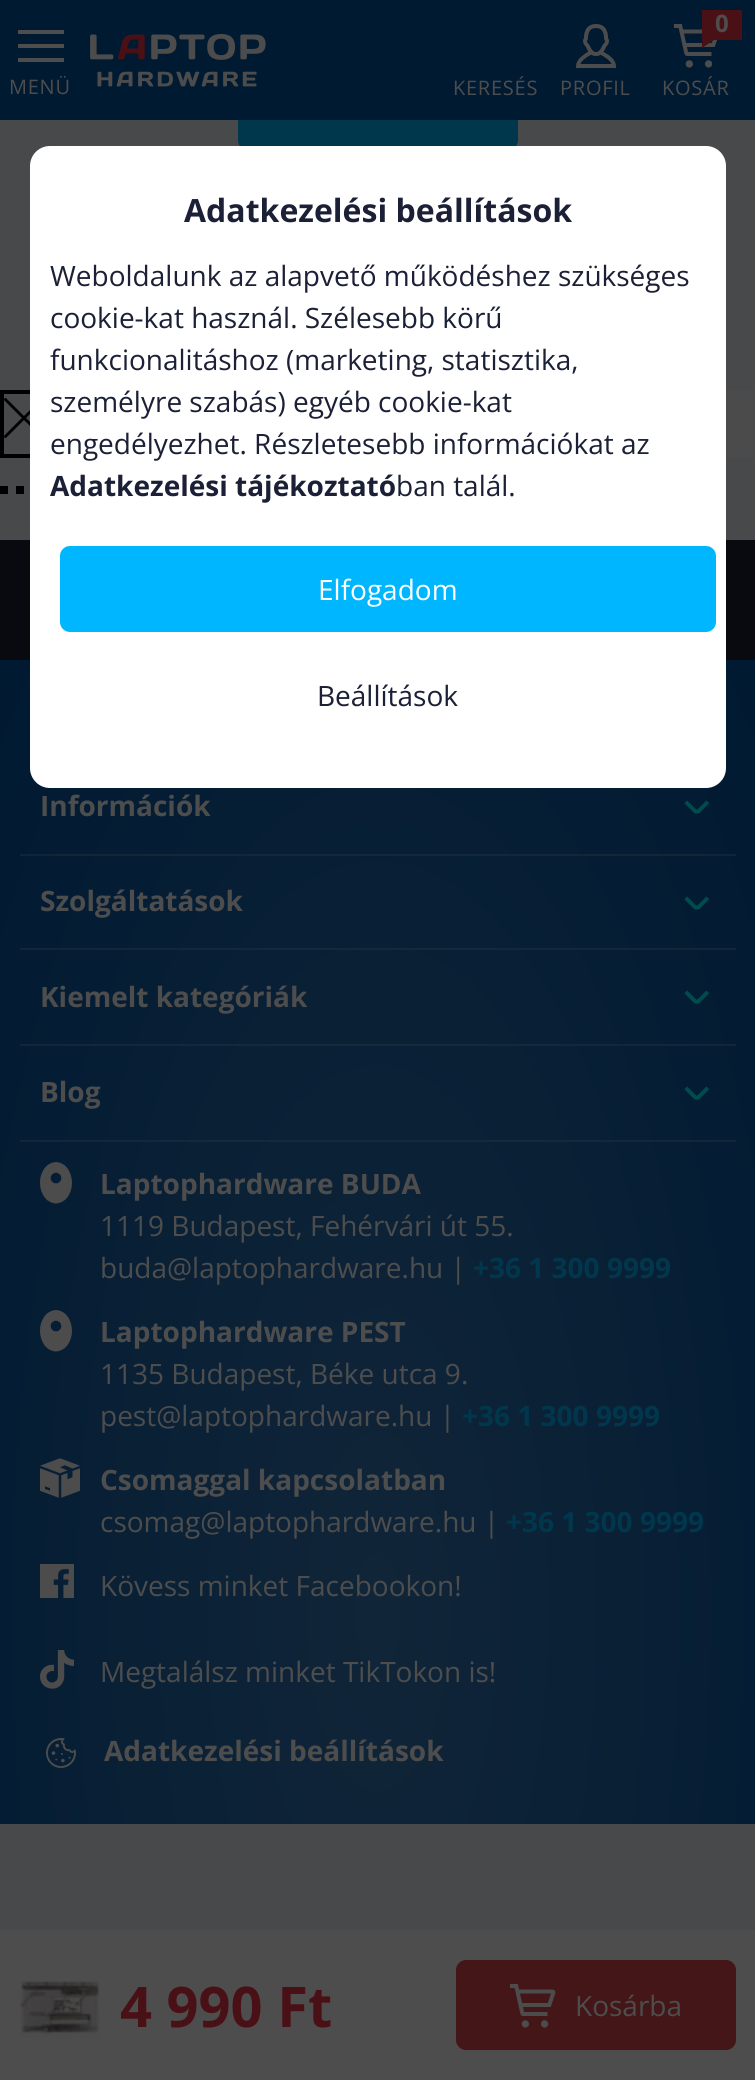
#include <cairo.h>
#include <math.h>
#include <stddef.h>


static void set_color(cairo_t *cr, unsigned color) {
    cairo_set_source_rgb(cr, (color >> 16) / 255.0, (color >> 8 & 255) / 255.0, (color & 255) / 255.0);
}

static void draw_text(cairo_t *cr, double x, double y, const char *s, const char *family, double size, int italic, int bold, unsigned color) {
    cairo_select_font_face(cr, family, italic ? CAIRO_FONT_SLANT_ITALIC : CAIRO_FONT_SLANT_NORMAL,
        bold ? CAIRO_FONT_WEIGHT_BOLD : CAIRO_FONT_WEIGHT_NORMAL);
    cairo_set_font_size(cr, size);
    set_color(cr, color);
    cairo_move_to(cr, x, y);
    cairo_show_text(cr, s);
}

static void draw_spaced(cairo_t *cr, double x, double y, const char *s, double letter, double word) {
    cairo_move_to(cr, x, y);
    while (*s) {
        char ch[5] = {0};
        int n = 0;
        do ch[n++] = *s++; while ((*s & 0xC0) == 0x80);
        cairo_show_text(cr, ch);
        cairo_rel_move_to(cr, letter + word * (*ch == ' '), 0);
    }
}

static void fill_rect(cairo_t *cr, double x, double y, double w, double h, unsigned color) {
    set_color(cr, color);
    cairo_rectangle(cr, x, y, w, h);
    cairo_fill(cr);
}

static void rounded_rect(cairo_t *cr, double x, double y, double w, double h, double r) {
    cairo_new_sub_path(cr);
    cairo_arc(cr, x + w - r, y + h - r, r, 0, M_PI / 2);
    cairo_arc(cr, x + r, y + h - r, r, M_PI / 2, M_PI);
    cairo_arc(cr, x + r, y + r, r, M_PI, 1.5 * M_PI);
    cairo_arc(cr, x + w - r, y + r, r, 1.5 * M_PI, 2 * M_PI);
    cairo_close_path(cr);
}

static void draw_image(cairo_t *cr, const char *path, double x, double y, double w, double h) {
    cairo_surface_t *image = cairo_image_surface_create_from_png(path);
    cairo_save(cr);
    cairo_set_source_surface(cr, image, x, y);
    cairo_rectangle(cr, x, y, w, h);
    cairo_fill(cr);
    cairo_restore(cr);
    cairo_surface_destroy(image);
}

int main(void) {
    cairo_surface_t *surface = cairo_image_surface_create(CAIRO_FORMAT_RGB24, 755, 2080);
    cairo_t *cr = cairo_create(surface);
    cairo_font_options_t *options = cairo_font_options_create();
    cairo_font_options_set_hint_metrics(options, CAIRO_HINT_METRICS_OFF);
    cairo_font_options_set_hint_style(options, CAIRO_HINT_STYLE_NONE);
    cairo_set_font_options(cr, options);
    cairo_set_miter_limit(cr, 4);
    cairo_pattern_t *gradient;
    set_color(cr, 0x47494A);
    cairo_paint(cr);
    set_color(cr, 0x00374D);
    rounded_rect(cr, 239, 65, 278, 84, 9);
    cairo_fill_preserve(cr);
    cairo_stroke(cr);
    fill_rect(cr, 0, 0, 755, 120, 0x001A32);
    fill_rect(cr, 18, 30, 46, 4, 0x4D4D4D);
    fill_rect(cr, 18, 44, 46, 4, 0x4D4D4D);
    fill_rect(cr, 18, 58, 46, 4, 0x4D4D4D);
    cairo_select_font_face(cr, "Open Sans", CAIRO_FONT_SLANT_NORMAL, CAIRO_FONT_WEIGHT_NORMAL);
    cairo_set_font_size(cr, 20);
    draw_spaced(cr, 9, 94, "MENÜ", 0.75, 0);
    draw_image(cr, "assets/img1.png", 90, 34, 176, 53);
    draw_spaced(cr, 453, 95, "KERESÉS", 0.75, 0);
    draw_image(cr, "assets/img2.png", 576, 24, 40, 44);
    draw_spaced(cr, 560, 95, "PROFIL", 0.75, 0);
    draw_image(cr, "assets/img3.png", 674, 24, 43, 44);
    set_color(cr, 0x491116);
    cairo_set_fill_rule(cr, CAIRO_FILL_RULE_EVEN_ODD);
    cairo_new_path(cr);
    cairo_move_to(cr, 702, 10);
    cairo_line_to(cr, 742, 10);
    cairo_line_to(cr, 742, 40);
    cairo_line_to(cr, 714, 40);
    cairo_line_to(cr, 702, 48);
    cairo_close_path(cr);
    cairo_fill(cr);
    draw_text(cr, 715, 32, "0", "Open Sans", 24, 0, 1, 0x4D4D4D);
    cairo_select_font_face(cr, "Open Sans", CAIRO_FONT_SLANT_NORMAL, CAIRO_FONT_WEIGHT_NORMAL);
    cairo_set_font_size(cr, 20);
    draw_spaced(cr, 662, 95, "KOSÁR", 0.75, 0);
    fill_rect(cr, 0, 540, 755, 120, 0x080A10);
    gradient = cairo_pattern_create_radial(0, 0, 0, 0, 0, 1);
    cairo_pattern_set_matrix(gradient, &(cairo_matrix_t){1.0 / 535, 0, 0, 1.0 / 1351, -1.0 * 378 / 535, -1.0 * 1615 / 1351});
    cairo_pattern_add_color_stop_rgba(gradient, 0, 0.067, 0.145, 0.22, 1);
    cairo_pattern_add_color_stop_rgba(gradient, 1, 0, 0.102, 0.196, 1);
    cairo_set_source(cr, gradient);
    cairo_pattern_destroy(gradient);
    cairo_rectangle(cr, 0, 660, 755, 1164);
    cairo_fill(cr);
    gradient = cairo_pattern_create_radial(0, 0, 0, 0, 0, 1);
    cairo_pattern_set_matrix(gradient, &(cairo_matrix_t){1.0 / 535, 0, 0, 1.0 / 1351, -1.0 * 378 / 535, -1.0 * 1615 / 1351});
    cairo_pattern_add_color_stop_rgba(gradient, 0, 0.114, 0.176, 0.235, 1);
    cairo_pattern_add_color_stop_rgba(gradient, 1, 0.059, 0.141, 0.216, 1);
    cairo_set_source(cr, gradient);
    cairo_pattern_destroy(gradient);
    cairo_rectangle(cr, 20, 1140, 716, 2);
    cairo_fill(cr);
    cairo_rectangle(cr, 20, 1044, 716, 2);
    cairo_fill(cr);
    cairo_rectangle(cr, 20, 948, 716, 2);
    cairo_fill(cr);
    cairo_rectangle(cr, 20, 854, 716, 2);
    cairo_fill(cr);
    draw_text(cr, 40, 816, "Információk", "Open Sans", 28, 0, 1, 0x4D4D4D);
    draw_image(cr, "assets/img4.png", 684, 800, 25, 14);
    draw_text(cr, 40, 911, "Szolgáltatások", "Open Sans", 28, 0, 1, 0x4D4D4D);
    draw_image(cr, "assets/img5.png", 684, 896, 25, 14);
    draw_text(cr, 40, 1007, "Kiemelt kategóriák", "Open Sans", 28, 0, 1, 0x4D4D4D);
    draw_image(cr, "assets/img6.png", 684, 990, 25, 14);
    draw_text(cr, 40, 1102, "Blog", "Open Sans", 28, 0, 1, 0x4D4D4D);
    draw_image(cr, "assets/img7.png", 684, 1086, 25, 14);
    draw_image(cr, "assets/img8.png", 40, 1162, 32, 42);
    draw_text(cr, 100, 1194, "Laptophardware BUDA", "Open Sans", 28, 0, 1, 0x4D4D4D);
    draw_text(cr, 100, 1236, "1119 Budapest, Fehérvári út 55.", "Open Sans", 28, 0, 0, 0x4D4D4D);
    draw_text(cr, 100, 1278, "buda@laptophardware.hu |", "Open Sans", 28, 0, 0, 0x4D4D4D);
    draw_text(cr, 473, 1278, "+36 1 300 9999", "Open Sans", 28, 0, 1, 0x00374D);
    draw_image(cr, "assets/img9.png", 40, 1310, 32, 42);
    draw_text(cr, 100, 1342, "Laptophardware PEST", "Open Sans", 28, 0, 1, 0x4D4D4D);
    draw_text(cr, 100, 1384, "1135 Budapest, Béke utca 9.", "Open Sans", 28, 0, 0, 0x4D4D4D);
    draw_text(cr, 100, 1426, "pest@laptophardware.hu |", "Open Sans", 28, 0, 0, 0x4D4D4D);
    draw_text(cr, 462, 1426, "+36 1 300 9999", "Open Sans", 28, 0, 1, 0x00374D);
    draw_image(cr, "assets/img10.png", 40, 1458, 40, 40);
    draw_text(cr, 100, 1490, "Csomaggal kapcsolatban", "Open Sans", 28, 0, 1, 0x4D4D4D);
    draw_text(cr, 100, 1532, "csomag@laptophardware.hu |", "Open Sans", 28, 0, 0, 0x4D4D4D);
    draw_text(cr, 506, 1532, "+36 1 300 9999", "Open Sans", 28, 0, 1, 0x00374D);
    draw_image(cr, "assets/img11.png", 40, 1564, 34, 34);
    draw_text(cr, 100, 1596, "Kövess minket Facebookon!", "Open Sans", 28, 0, 0, 0x4D4D4D);
    draw_image(cr, "assets/img12.png", 40, 1650, 34, 39);
    draw_text(cr, 100, 1682, "Megtalálsz minket TikTokon is!", "Open Sans", 28, 0, 0, 0x4D4D4D);
    draw_image(cr, "assets/img13.png", 46, 1738, 30, 30);
    draw_text(cr, 104, 1761, "Adatkezelési beállítások", "Open Sans", 28, 0, 1, 0x4D4D4D);
    fill_rect(cr, 726, 390, 29, 68, 0x4B4B4C);
    cairo_rectangle(cr, 2, 392, 44, 64);
    set_color(cr, 0x000000);
    cairo_set_line_width(cr, 4);
    cairo_stroke(cr);
    draw_image(cr, "assets/img14.png", 4, 398, 26, 40);
    fill_rect(cr, 0, 486, 8, 8, 0x000000);
    fill_rect(cr, 16, 486, 8, 8, 0x000000);
    fill_rect(cr, 0, 1930, 755, 150, 0x4D4D4D);
    draw_image(cr, "assets/img15.png", 20, 1981, 80, 57);
    draw_text(cr, 120, 2027, "4 990 Ft", "Open Sans", 56, 0, 1, 0x491116);
    set_color(cr, 0x441618);
    rounded_rect(cr, 456, 1960, 280, 90, 10);
    cairo_fill(cr);
    draw_image(cr, "assets/img16.png", 510, 1984, 46, 44);
    draw_text(cr, 575, 2016, "Kosárba", "Open Sans", 28, 0, 0, 0x4D4D4D);
    set_color(cr, 0xFFFFFF);
    rounded_rect(cr, 30, 146, 696, 642, 20);
    cairo_fill(cr);
    draw_text(cr, 184, 222, "Adatkezelési beállítások", "Open Sans", 32, 0, 1, 0x1B2036);
    draw_text(cr, 50, 286, "Weboldalunk az alapvető működéshez szükséges", "Open Sans", 28, 0, 0, 0x1B2036);
    draw_text(cr, 50, 328, "cookie-kat használ. Szélesebb körű", "Open Sans", 28, 0, 0, 0x1B2036);
    draw_text(cr, 50, 370, "funkcionalitáshoz (marketing, statisztika,", "Open Sans", 28, 0, 0, 0x1B2036);
    draw_text(cr, 50, 412, "személyre szabás) egyéb cookie-kat", "Open Sans", 28, 0, 0, 0x1B2036);
    draw_text(cr, 50, 454, "engedélyezhet. Részletesebb információkat az", "Open Sans", 28, 0, 0, 0x1B2036);
    draw_text(cr, 50, 496, "Adatkezelési tájékoztató", "Open Sans", 28, 0, 1, 0x1B2036);
    draw_text(cr, 396, 496, "ban talál.", "Open Sans", 28, 0, 0, 0x1B2036);
    set_color(cr, 0x00B7FF);
    rounded_rect(cr, 61, 547, 654, 84, 9);
    cairo_fill_preserve(cr);
    cairo_set_line_width(cr, 2);
    cairo_stroke(cr);
    draw_text(cr, 318, 600, "Elfogadom", "Open Sans", 28, 0, 0, 0xFFFFFF);
    draw_text(cr, 317, 706, "Beállítások", "Open Sans", 28, 0, 0, 0x1B2036);
    cairo_surface_write_to_png(surface, "output.png");
    cairo_font_options_destroy(options);
    cairo_destroy(cr);
    cairo_surface_destroy(surface);
    return 0;
}
